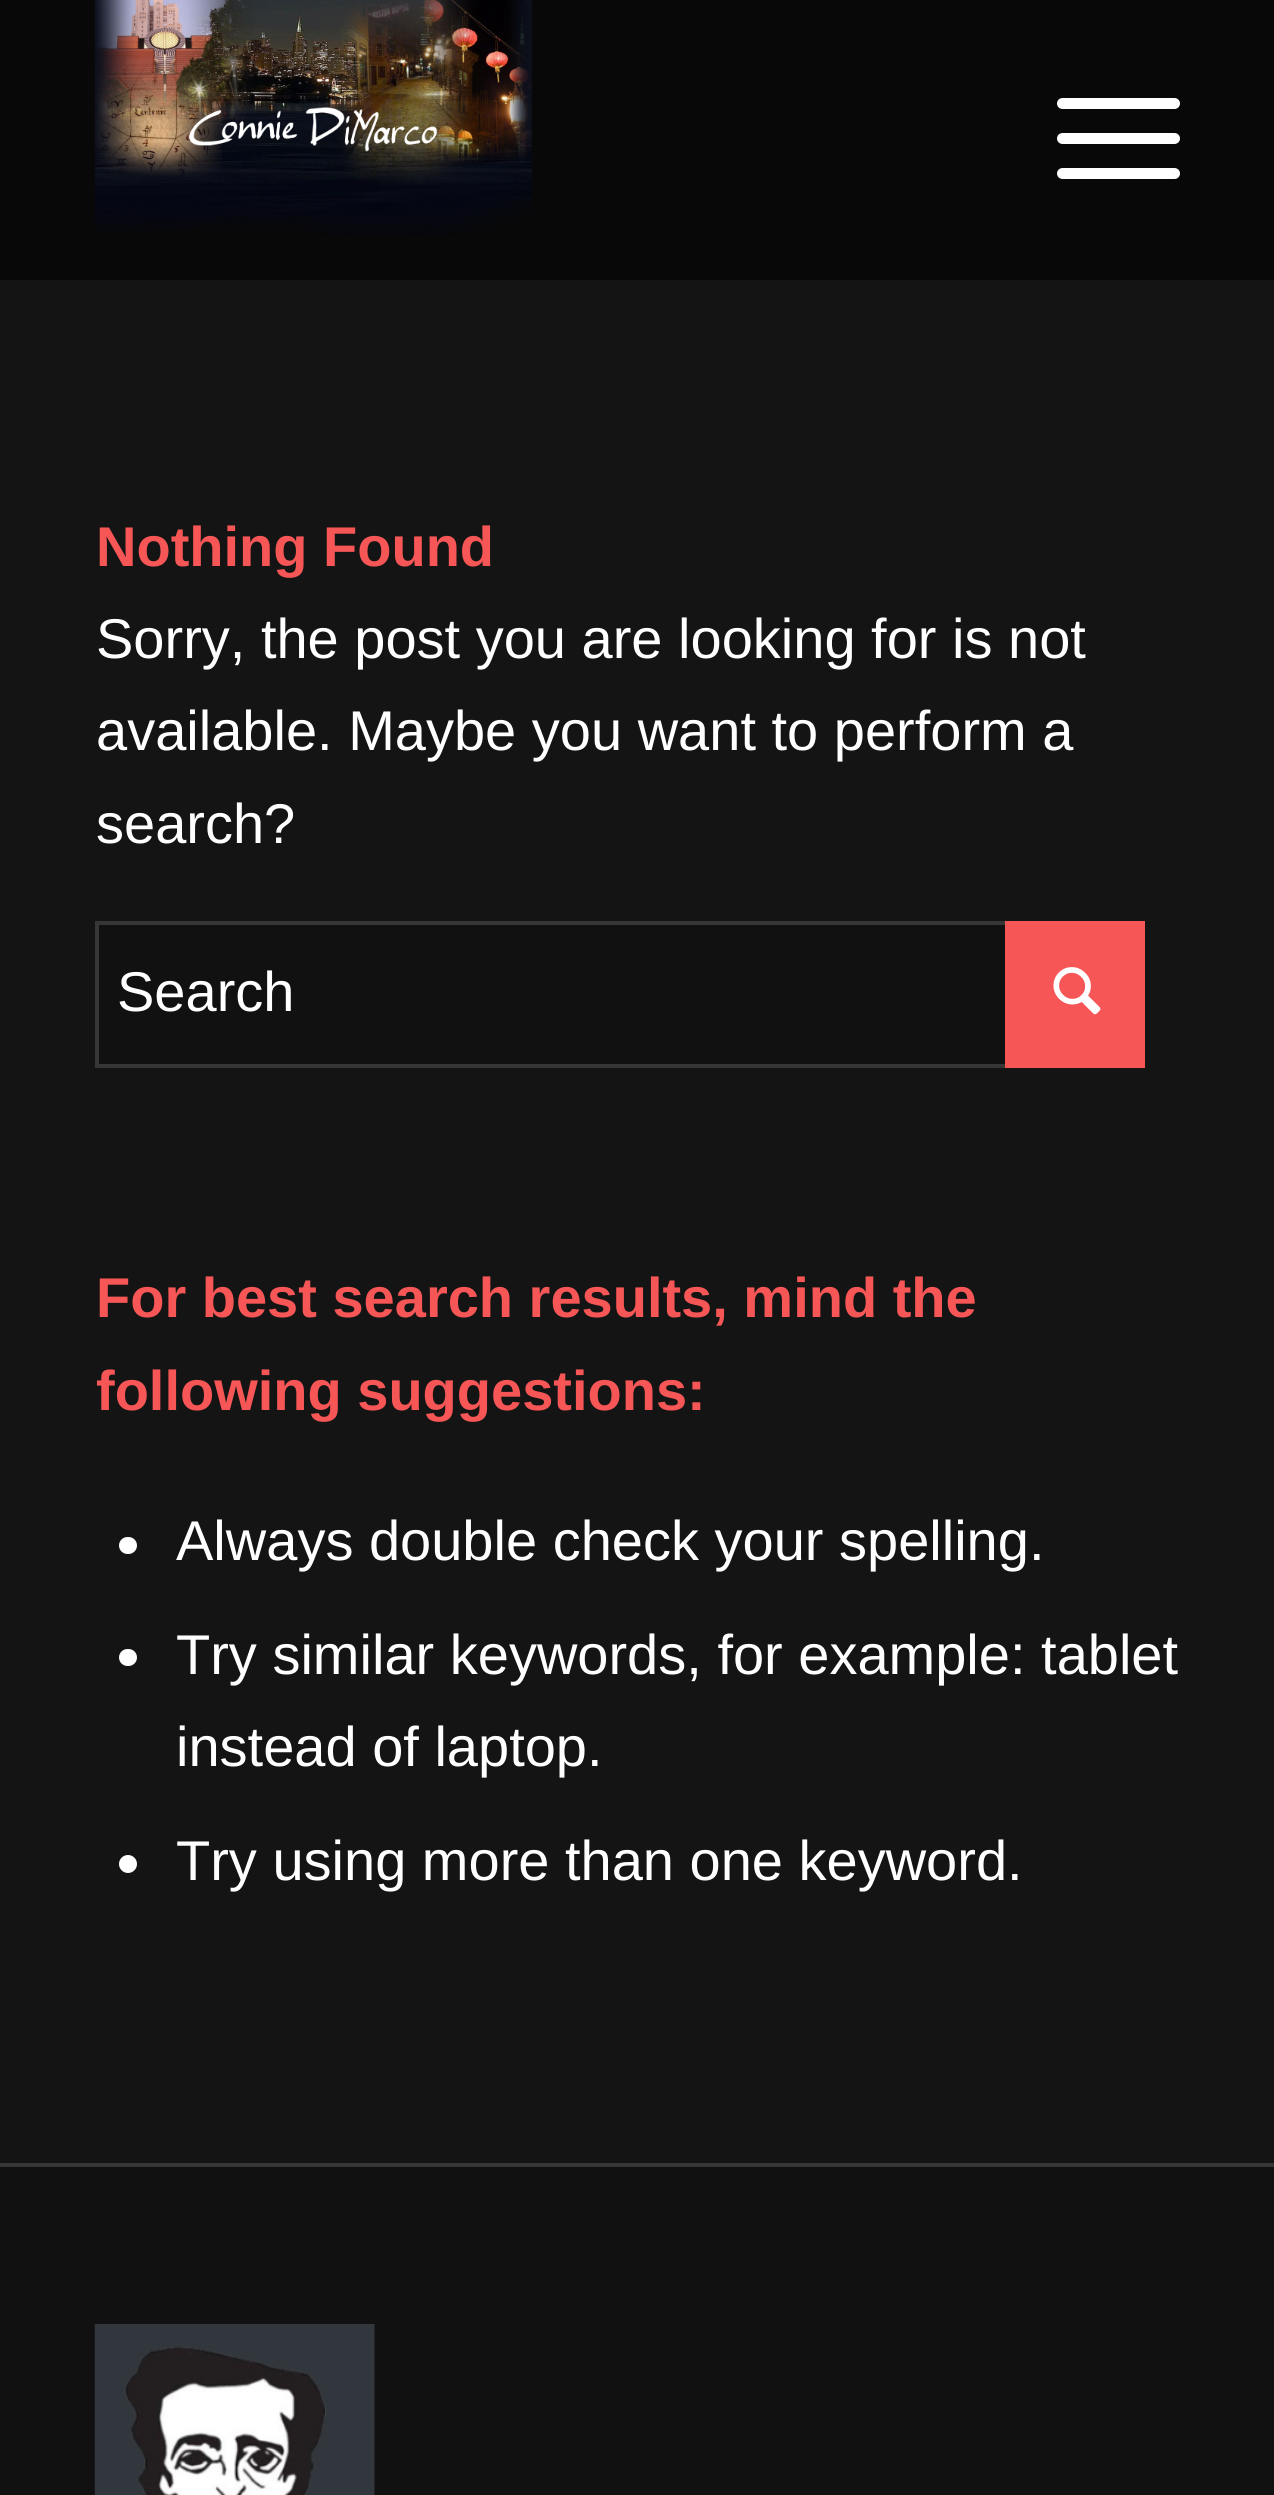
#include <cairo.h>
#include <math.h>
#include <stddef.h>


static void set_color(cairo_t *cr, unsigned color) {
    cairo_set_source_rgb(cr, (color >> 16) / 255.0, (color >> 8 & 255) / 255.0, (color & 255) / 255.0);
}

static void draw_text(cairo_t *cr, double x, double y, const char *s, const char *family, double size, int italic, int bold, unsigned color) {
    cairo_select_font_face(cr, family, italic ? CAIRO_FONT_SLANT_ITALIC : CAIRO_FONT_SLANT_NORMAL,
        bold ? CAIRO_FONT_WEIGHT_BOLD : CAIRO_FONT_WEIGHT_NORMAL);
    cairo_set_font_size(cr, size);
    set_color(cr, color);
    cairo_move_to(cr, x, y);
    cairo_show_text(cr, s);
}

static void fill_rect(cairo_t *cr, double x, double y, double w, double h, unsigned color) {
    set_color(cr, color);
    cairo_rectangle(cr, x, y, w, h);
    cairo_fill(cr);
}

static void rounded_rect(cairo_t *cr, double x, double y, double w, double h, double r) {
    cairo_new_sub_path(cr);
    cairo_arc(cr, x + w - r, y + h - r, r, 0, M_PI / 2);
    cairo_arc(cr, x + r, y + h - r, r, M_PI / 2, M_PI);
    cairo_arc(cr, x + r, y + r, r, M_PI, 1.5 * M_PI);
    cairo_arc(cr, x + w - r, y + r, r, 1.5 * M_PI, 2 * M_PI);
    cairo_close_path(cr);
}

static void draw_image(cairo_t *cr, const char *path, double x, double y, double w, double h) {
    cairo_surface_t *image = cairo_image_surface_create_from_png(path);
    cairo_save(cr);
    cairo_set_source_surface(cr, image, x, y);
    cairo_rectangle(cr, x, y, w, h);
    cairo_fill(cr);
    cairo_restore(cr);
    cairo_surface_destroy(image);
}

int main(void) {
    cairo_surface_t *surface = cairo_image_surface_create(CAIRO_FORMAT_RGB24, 1274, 2495);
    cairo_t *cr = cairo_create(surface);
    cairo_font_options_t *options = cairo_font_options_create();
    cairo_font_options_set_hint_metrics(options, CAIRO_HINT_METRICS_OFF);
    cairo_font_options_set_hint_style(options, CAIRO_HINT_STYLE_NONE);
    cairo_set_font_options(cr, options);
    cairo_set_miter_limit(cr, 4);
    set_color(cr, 0x141414);
    cairo_paint(cr);
    fill_rect(cr, 0, 0, 1274, 280, 0x080808);
    draw_image(cr, "assets/img1.png", 94, 0, 438, 235);
    set_color(cr, 0xFFFFFF);
    rounded_rect(cr, 1057, 133, 123, 11, 5.5);
    cairo_fill(cr);
    rounded_rect(cr, 1057, 98, 123, 11, 5.5);
    cairo_fill(cr);
    rounded_rect(cr, 1057, 168, 123, 11, 5.5);
    cairo_fill(cr);
    draw_text(cr, 96, 566, "Nothing Found", "Liberation Sans", 56, 0, 1, 0xF75656);
    draw_text(cr, 96, 658, "Sorry, the post you are looking for is not", "Liberation Sans", 56, 0, 0, 0xFFFFFF);
    draw_text(cr, 96, 750, "available. Maybe you want to perform a", "Liberation Sans", 56, 0, 0, 0xFFFFFF);
    draw_text(cr, 96, 843, "search?", "Liberation Sans", 56, 0, 0, 0xFFFFFF);
    fill_rect(cr, 99, 925, 906, 139, 0x111111);
    cairo_rectangle(cr, 97, 923, 1046, 143);
    set_color(cr, 0x363636);
    cairo_set_line_width(cr, 4);
    cairo_stroke(cr);
    draw_text(cr, 117, 1011, "Search", "Liberation Sans", 56, 0, 0, 0xFFFFFF);
    fill_rect(cr, 1005, 921, 140, 147, 0xF75656);
    draw_image(cr, "assets/img2.png", 1053, 967, 48, 48);
    draw_text(cr, 96, 1317, "For best search results, mind the", "Liberation Sans", 56, 0, 1, 0xF75656);
    draw_text(cr, 96, 1410, "following suggestions:", "Liberation Sans", 56, 0, 1, 0xF75656);
    set_color(cr, 0xFFFFFF);
    rounded_rect(cr, 119, 1537, 18, 17, 8.5);
    cairo_fill(cr);
    draw_text(cr, 176, 1560, "Always double check your spelling.", "Liberation Sans", 56, 0, 0, 0xFFFFFF);
    rounded_rect(cr, 119, 1649, 18, 17, 8.5);
    cairo_fill(cr);
    draw_text(cr, 176, 1674, "Try similar keywords, for example: tablet", "Liberation Sans", 56, 0, 0, 0xFFFFFF);
    draw_text(cr, 176, 1766, "instead of laptop.", "Liberation Sans", 56, 0, 0, 0xFFFFFF);
    cairo_new_path(cr);
    cairo_arc(cr, 128, 1864, 9, 0, 2 * M_PI);
    cairo_fill(cr);
    draw_text(cr, 176, 1880, "Try using more than one keyword.", "Liberation Sans", 56, 0, 0, 0xFFFFFF);
    fill_rect(cr, 0, 2167, 1274, 328, 0x111111);
    fill_rect(cr, 0, 2163, 1274, 4, 0x363636);
    draw_image(cr, "assets/img3.png", 94, 2324, 281, 171);
    cairo_surface_write_to_png(surface, "output.png");
    cairo_font_options_destroy(options);
    cairo_destroy(cr);
    cairo_surface_destroy(surface);
    return 0;
}
